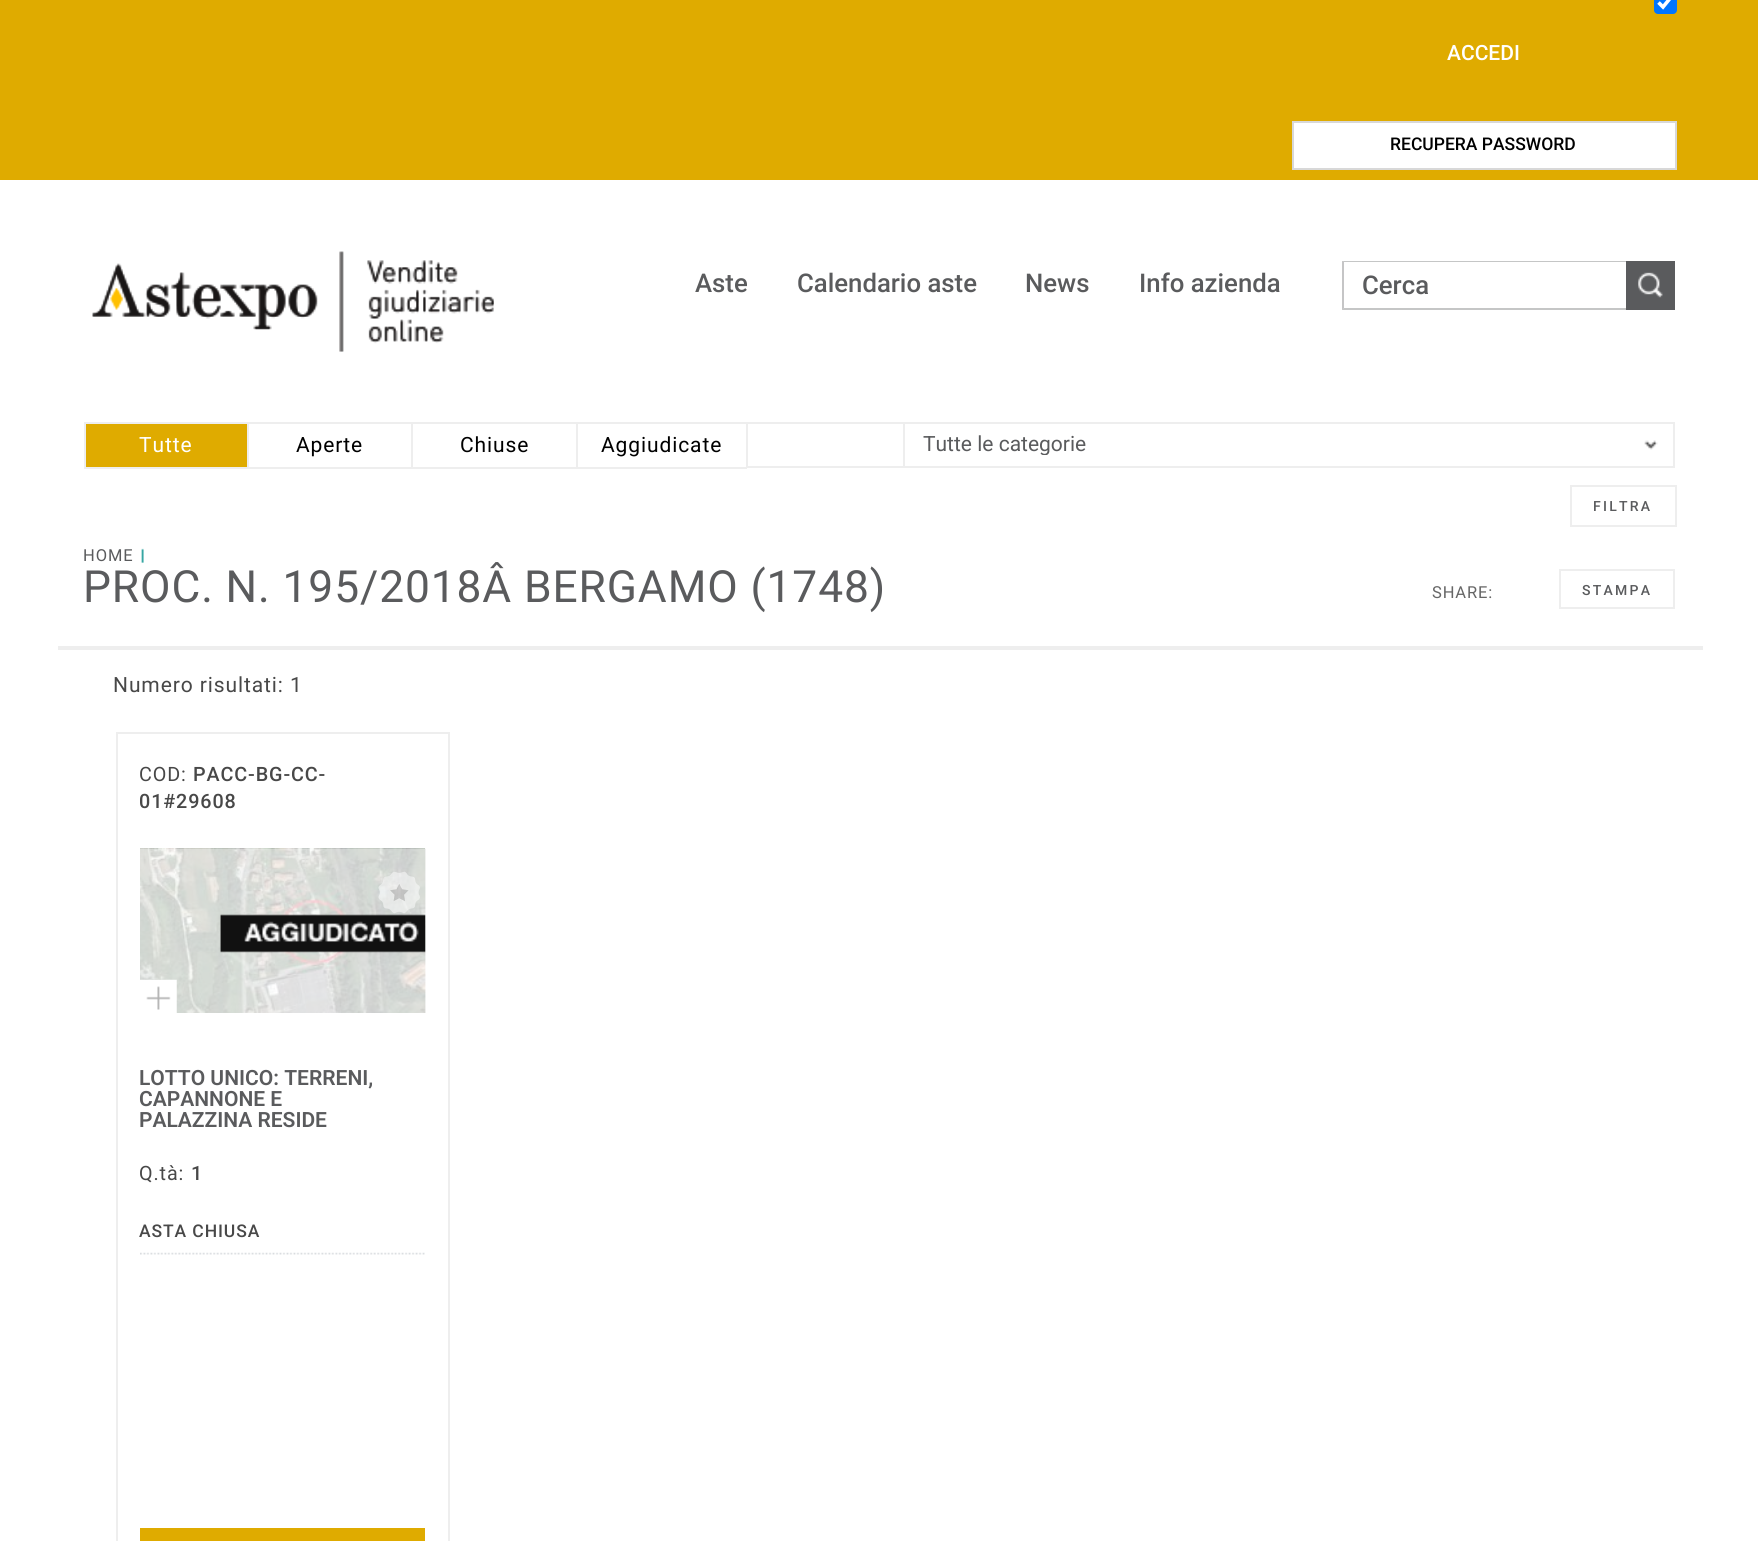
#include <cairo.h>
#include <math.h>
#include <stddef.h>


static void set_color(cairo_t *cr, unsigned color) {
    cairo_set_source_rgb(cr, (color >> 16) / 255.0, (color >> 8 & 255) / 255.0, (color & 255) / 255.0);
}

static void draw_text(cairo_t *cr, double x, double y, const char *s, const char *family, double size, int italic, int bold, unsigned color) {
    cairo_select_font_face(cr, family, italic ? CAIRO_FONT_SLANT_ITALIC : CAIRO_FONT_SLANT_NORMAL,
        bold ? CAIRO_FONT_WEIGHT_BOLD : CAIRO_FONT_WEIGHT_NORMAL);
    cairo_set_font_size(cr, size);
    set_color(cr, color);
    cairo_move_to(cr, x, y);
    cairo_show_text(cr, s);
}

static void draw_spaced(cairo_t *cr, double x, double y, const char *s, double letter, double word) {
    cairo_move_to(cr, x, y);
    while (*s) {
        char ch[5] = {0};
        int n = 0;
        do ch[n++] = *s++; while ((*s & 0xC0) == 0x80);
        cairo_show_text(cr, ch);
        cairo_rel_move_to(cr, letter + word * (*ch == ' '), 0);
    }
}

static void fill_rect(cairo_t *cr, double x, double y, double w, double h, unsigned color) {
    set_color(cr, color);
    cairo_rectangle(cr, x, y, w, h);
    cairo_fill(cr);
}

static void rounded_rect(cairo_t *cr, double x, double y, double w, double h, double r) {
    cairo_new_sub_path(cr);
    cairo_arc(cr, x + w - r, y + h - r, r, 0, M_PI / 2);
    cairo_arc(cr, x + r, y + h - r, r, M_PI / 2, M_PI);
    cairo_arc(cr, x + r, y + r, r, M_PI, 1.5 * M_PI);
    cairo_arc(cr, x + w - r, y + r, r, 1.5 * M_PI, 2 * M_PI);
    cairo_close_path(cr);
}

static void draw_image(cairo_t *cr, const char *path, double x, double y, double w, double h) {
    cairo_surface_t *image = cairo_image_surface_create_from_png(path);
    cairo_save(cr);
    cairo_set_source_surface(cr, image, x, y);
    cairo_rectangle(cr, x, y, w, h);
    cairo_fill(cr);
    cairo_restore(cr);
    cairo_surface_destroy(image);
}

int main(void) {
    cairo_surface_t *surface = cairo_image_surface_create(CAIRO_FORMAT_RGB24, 1758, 1541);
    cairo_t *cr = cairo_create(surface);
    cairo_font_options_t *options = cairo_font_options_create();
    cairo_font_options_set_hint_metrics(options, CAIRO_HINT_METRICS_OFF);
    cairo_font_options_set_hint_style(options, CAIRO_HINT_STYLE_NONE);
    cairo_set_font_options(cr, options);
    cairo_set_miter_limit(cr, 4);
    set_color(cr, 0xFFFFFF);
    cairo_paint(cr);
    fill_rect(cr, 0, 0, 1758, 180, 0xDFAB00);
    set_color(cr, 0x0075FF);
    rounded_rect(cr, 1654, -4, 23, 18, 4);
    cairo_fill(cr);
    cairo_new_path(cr);
    cairo_move_to(cr, 1658.5, 2.5);
    cairo_line_to(cr, 1663, 7);
    cairo_line_to(cr, 1672, -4);
    set_color(cr, 0xFFFFFF);
    cairo_set_line_width(cr, 3.6);
    cairo_stroke(cr);
    draw_text(cr, 1447, 60, "ACCEDI", "Roboto Medium", 21, 0, 0, 0xFFFFFF);
    cairo_rectangle(cr, 1293, 122, 383, 47);
    cairo_fill_preserve(cr);
    set_color(cr, 0xD8D8D8);
    cairo_set_line_width(cr, 2);
    cairo_stroke(cr);
    draw_text(cr, 1390, 150, "RECUPERA PASSWORD", "Roboto Medium", 17.5, 0, 0, 0x000000);
    draw_image(cr, "assets/img1.png", 92, 251, 402, 101);
    draw_image(cr, "assets/img2.png", 92, 251, 402, 101);
    draw_text(cr, 695, 292, "Aste", "Roboto Medium", 25.75, 0, 0, 0x5A5B5D);
    draw_text(cr, 797, 292, "Calendario aste", "Roboto Medium", 25.75, 0, 0, 0x5A5B5D);
    draw_text(cr, 1025, 292, "News", "Roboto Medium", 25.75, 0, 0, 0x5A5B5D);
    draw_text(cr, 1139, 292, "Info azienda", "Roboto Medium", 25.75, 0, 0, 0x5A5B5D);
    set_color(cr, 0xC5C6C6);
    cairo_new_path(cr);
    cairo_move_to(cr, 1342, 261);
    cairo_line_to(cr, 1626, 261);
    cairo_line_to(cr, 1626, 262);
    cairo_line_to(cr, 1344, 262);
    cairo_close_path(cr);
    cairo_fill(cr);
    cairo_new_path(cr);
    cairo_move_to(cr, 1626, 310);
    cairo_line_to(cr, 1342, 310);
    cairo_line_to(cr, 1344, 308);
    cairo_line_to(cr, 1626, 308);
    cairo_close_path(cr);
    cairo_fill(cr);
    cairo_set_source_rgba(cr, 0.353, 0.357, 0.365, 0.35);
    cairo_new_path(cr);
    cairo_move_to(cr, 1342, 310);
    cairo_line_to(cr, 1342, 261);
    cairo_line_to(cr, 1344, 262);
    cairo_line_to(cr, 1344, 308);
    cairo_close_path(cr);
    cairo_fill(cr);
    draw_text(cr, 1362, 294, "Cerca", "Roboto Medium", 25.75, 0, 0, 0x5A5B5D);
    fill_rect(cr, 1626, 261, 49, 49, 0x5A5B5D);
    draw_image(cr, "assets/img3.png", 1638, 272, 25, 26);
    fill_rect(cr, 84, 422, 1591, 2, 0xEEEEEE);
    fill_rect(cr, 84, 467, 663, 2, 0xEEEEEE);
    fill_rect(cr, 86, 424, 161, 43, 0xDFAB00);
    fill_rect(cr, 84, 424, 2, 43, 0xEEEEEE);
    cairo_select_font_face(cr, "Roboto", CAIRO_FONT_SLANT_NORMAL, CAIRO_FONT_WEIGHT_NORMAL);
    cairo_set_font_size(cr, 21);
    set_color(cr, 0xFFFFFF);
    draw_spaced(cr, 139, 452, "Tutte", 0.9, 0);
    fill_rect(cr, 247, 424, 2, 43, 0xEEEEEE);
    set_color(cr, 0x000000);
    draw_spaced(cr, 296, 452, "Aperte", 0.9, 0);
    fill_rect(cr, 411, 424, 2, 43, 0xEEEEEE);
    set_color(cr, 0x000000);
    draw_spaced(cr, 460, 452, "Chiuse", 0.9, 0);
    fill_rect(cr, 746, 424, 2, 43, 0xEEEEEE);
    fill_rect(cr, 576, 424, 2, 43, 0xEEEEEE);
    set_color(cr, 0x000000);
    draw_spaced(cr, 601, 452, "Aggiudicate", 0.9, 0);
    fill_rect(cr, 747, 466, 928, 2, 0xEEEEEE);
    draw_image(cr, "assets/img4.png", 1644, 440, 14, 10);
    fill_rect(cr, 1673, 424, 2, 42, 0xEEEEEE);
    fill_rect(cr, 903, 424, 2, 42, 0xEEEEEE);
    cairo_save(cr);
    cairo_rectangle(cr, 922, 434, 751, 21);
    cairo_clip(cr);
    draw_text(cr, 923, 451, "Tutte le categorie", "Roboto", 21, 0, 0, 0x5A5B5D);
    cairo_restore(cr);
    cairo_rectangle(cr, 1571, 486, 105, 40);
    cairo_stroke(cr);
    cairo_select_font_face(cr, "Roboto Medium", CAIRO_FONT_SLANT_NORMAL, CAIRO_FONT_WEIGHT_NORMAL);
    cairo_set_font_size(cr, 14);
    set_color(cr, 0x5A5B5D);
    draw_spaced(cr, 1593, 511, "FILTRA", 2.25, 0);
    fill_rect(cr, 58, 646, 1645, 4, 0xEEEEEE);
    draw_image(cr, "assets/img5.png", 141, 548, 3, 15);
    cairo_select_font_face(cr, "Roboto", CAIRO_FONT_SLANT_NORMAL, CAIRO_FONT_WEIGHT_NORMAL);
    cairo_set_font_size(cr, 16.5);
    set_color(cr, 0x5A5B5D);
    draw_spaced(cr, 83, 561, "HOME", 0.9, 0);
    cairo_set_font_size(cr, 44.3);
    draw_spaced(cr, 83, 602, "PROC. N. 195/2018Â BERGAMO (1748)", 0.9, 0);
    cairo_set_font_size(cr, 16.5);
    set_color(cr, 0x666666);
    draw_spaced(cr, 1432, 598, "SHARE:", 0.9, 0);
    cairo_rectangle(cr, 1560, 570, 114, 38);
    set_color(cr, 0xEEEEEE);
    cairo_stroke(cr);
    cairo_select_font_face(cr, "Roboto Medium", CAIRO_FONT_SLANT_NORMAL, CAIRO_FONT_WEIGHT_NORMAL);
    cairo_set_font_size(cr, 14);
    set_color(cr, 0x5A5B5D);
    draw_spaced(cr, 1582, 595, "STAMPA", 2.25, 0);
    cairo_select_font_face(cr, "Roboto", CAIRO_FONT_SLANT_NORMAL, CAIRO_FONT_WEIGHT_NORMAL);
    cairo_set_font_size(cr, 21);
    set_color(cr, 0x484848);
    draw_spaced(cr, 113, 692, "Numero risultati: 1", 0.9, 0);
    cairo_rectangle(cr, 117, 733, 332, 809);
    set_color(cr, 0xEEEEEE);
    cairo_stroke(cr);
    cairo_set_font_size(cr, 19.75);
    set_color(cr, 0x484848);
    draw_spaced(cr, 139, 781, "COD:", 0.9, 0);
    cairo_select_font_face(cr, "Roboto Medium", CAIRO_FONT_SLANT_NORMAL, CAIRO_FONT_WEIGHT_NORMAL);
    draw_spaced(cr, 193, 781, "PACC-BG-CC-", 0.9, 0);
    draw_spaced(cr, 139, 808, "01#29608", 0.9, 0);
    draw_image(cr, "assets/img6.png", 140, 848, 286, 165);
    draw_image(cr, "assets/img7.png", 140, 848, 286, 165);
    draw_image(cr, "assets/img8.png", 220, 914, 206, 39);
    draw_image(cr, "assets/img9.png", 140, 979, 37, 34);
    draw_image(cr, "assets/img10.png", 378, 871, 42, 43);
    draw_text(cr, 139, 1085, "LOTTO UNICO: TERRENI,", "Roboto SemiBold", 21, 0, 0, 0x5A5B5D);
    draw_text(cr, 139, 1106, "CAPANNONE E", "Roboto SemiBold", 21, 0, 0, 0x5A5B5D);
    draw_text(cr, 139, 1127, "PALAZZINA RESIDE", "Roboto SemiBold", 21, 0, 0, 0x5A5B5D);
    cairo_select_font_face(cr, "Roboto", CAIRO_FONT_SLANT_NORMAL, CAIRO_FONT_WEIGHT_NORMAL);
    cairo_set_font_size(cr, 19.75);
    set_color(cr, 0x484848);
    draw_spaced(cr, 139, 1180, "Q.tà:", 0.9, 0);
    cairo_select_font_face(cr, "Roboto Medium", CAIRO_FONT_SLANT_NORMAL, CAIRO_FONT_WEIGHT_NORMAL);
    draw_spaced(cr, 191, 1180, "1", 0.9, 0);
    cairo_set_font_size(cr, 17.5);
    draw_spaced(cr, 139, 1237, "ASTA CHIUSA", 0.9, 0);
    draw_image(cr, "assets/img11.png", 140, 1252, 285, 3);
    fill_rect(cr, 140, 1528, 285, 13, 0xDFAB00);
    cairo_surface_write_to_png(surface, "output.png");
    cairo_font_options_destroy(options);
    cairo_destroy(cr);
    cairo_surface_destroy(surface);
    return 0;
}
